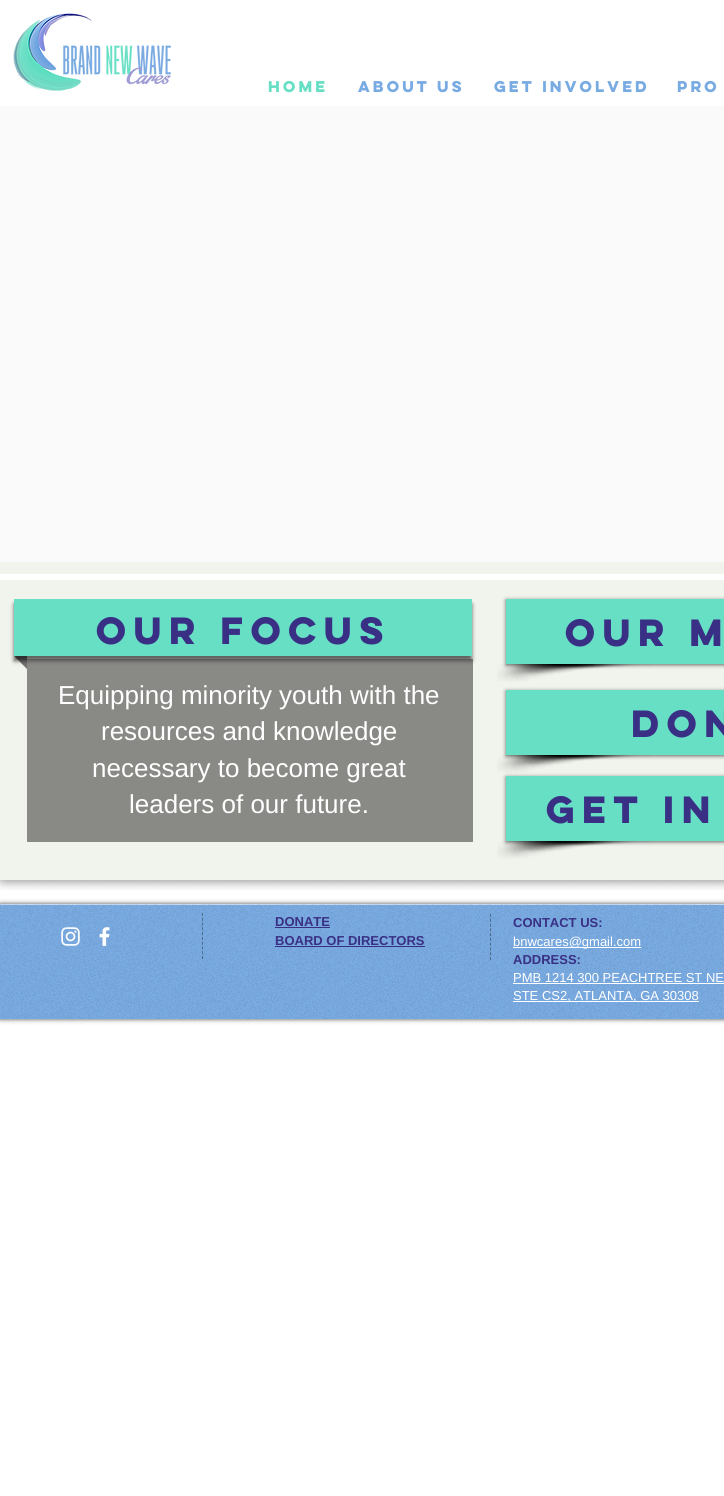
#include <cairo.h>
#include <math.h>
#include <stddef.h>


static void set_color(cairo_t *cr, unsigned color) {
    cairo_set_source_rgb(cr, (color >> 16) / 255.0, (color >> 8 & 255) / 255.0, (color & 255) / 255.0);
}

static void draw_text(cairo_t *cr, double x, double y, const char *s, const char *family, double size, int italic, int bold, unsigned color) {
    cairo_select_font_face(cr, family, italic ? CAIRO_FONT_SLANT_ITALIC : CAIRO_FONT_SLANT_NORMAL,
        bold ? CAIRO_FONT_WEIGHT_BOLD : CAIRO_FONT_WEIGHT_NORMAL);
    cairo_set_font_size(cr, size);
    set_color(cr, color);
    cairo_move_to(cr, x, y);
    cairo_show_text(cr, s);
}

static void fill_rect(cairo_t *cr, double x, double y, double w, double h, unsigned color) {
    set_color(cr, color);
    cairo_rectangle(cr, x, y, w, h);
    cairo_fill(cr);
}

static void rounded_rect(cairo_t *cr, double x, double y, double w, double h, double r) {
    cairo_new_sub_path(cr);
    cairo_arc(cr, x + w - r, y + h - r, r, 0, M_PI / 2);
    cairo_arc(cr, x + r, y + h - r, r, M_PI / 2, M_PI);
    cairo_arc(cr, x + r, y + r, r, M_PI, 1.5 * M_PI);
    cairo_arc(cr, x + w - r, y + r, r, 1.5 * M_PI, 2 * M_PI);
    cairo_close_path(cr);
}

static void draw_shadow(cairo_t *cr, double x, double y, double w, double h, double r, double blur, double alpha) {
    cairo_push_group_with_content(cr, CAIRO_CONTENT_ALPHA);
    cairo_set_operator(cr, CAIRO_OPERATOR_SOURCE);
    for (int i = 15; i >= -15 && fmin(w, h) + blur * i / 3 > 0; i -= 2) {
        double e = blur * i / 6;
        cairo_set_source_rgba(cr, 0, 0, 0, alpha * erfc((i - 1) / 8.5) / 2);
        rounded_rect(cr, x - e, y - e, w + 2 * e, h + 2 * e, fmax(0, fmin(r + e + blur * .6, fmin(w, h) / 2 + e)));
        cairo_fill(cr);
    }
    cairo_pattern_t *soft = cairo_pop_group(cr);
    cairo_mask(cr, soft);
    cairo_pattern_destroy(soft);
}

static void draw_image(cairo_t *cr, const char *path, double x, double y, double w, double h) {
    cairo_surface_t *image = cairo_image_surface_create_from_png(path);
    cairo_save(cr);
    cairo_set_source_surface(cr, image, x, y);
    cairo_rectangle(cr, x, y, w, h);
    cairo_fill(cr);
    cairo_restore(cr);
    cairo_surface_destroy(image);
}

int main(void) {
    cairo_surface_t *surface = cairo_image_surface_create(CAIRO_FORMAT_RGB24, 724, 1496);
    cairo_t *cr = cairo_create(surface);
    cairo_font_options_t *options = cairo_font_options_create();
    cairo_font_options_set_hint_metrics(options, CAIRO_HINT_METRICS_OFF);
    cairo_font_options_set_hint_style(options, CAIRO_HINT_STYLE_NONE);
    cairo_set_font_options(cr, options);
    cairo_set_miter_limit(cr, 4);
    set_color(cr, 0xFFFFFF);
    cairo_paint(cr);
    draw_image(cr, "assets/img1.png", 13, 13, 158, 78);
    draw_text(cr, 268, 92, "HOME", "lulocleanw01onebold", 14, 0, 1, 0x67DFC5);
    draw_text(cr, 358, 92, "ABOUT US", "lulocleanw01onebold", 14, 0, 1, 0x79ABE3);
    draw_text(cr, 494, 92, "GET INVOLVED", "lulocleanw01onebold", 14, 0, 1, 0x79ABE3);
    draw_text(cr, 677, 92, "PRO", "lulocleanw01onebold", 14, 0, 1, 0x79ABE3);
    fill_rect(cr, 0, 562, 724, 318, 0xF1F4ED);
    draw_image(cr, "assets/img2.png", 0, 880, 35, 10);
    draw_image(cr, "assets/img3.png", 35, 880, 689, 10);
    fill_rect(cr, 0, 106, 724, 456, 0xFAFAFA);
    fill_rect(cr, 0, 574, 724, 6, 0xFFFFFF);
    set_color(cr, 0x737070);
    cairo_new_path(cr);
    cairo_move_to(cr, 14, 656);
    cairo_line_to(cr, 27, 656);
    cairo_line_to(cr, 27, 669);
    cairo_close_path(cr);
    cairo_fill(cr);
    set_color(cr, 0x000000);
    draw_shadow(cr, 14, 604, 458, 57, 0, 2, 0.6);
    fill_rect(cr, 14, 599, 458, 57, 0x67DFC5);
    draw_text(cr, 96, 644, "OUR FOCUS", "lulocleanw01onebold", 34, 0, 1, 0x393085);
    draw_image(cr, "assets/img4.png", 497, 664, 154, 18);
    set_color(cr, 0x000000);
    draw_shadow(cr, 506, 600, 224, 65, 0, 2, 0.6);
    fill_rect(cr, 506, 599, 218, 65, 0x67DFC5);
    draw_text(cr, 565, 646, "OUR M", "lulocleanw01onebold", 34, 0, 1, 0x393085);
    cairo_set_source_rgba(cr, 0.271, 0.259, 0.259, 0.6);
    cairo_rectangle(cr, 27, 659, 446, 183);
    cairo_fill(cr);
    draw_text(cr, 58, 704, "Equipping minority youth with the", "Liberation Sans", 26, 0, 0, 0xFFFFFF);
    draw_text(cr, 101, 740, "resources and knowledge", "Liberation Sans", 26, 0, 0, 0xFFFFFF);
    draw_text(cr, 92, 777, "necessary to become great", "Liberation Sans", 26, 0, 0, 0xFFFFFF);
    draw_text(cr, 129, 813, "leaders of our future.", "Liberation Sans", 26, 0, 0, 0xFFFFFF);
    draw_image(cr, "assets/img4.png", 497, 755, 154, 18);
    set_color(cr, 0x000000);
    draw_shadow(cr, 506, 691, 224, 65, 0, 2, 0.6);
    fill_rect(cr, 506, 690, 218, 65, 0x67DFC5);
    draw_text(cr, 631, 737, "DON", "lulocleanw01onebold", 34, 0, 1, 0x393085);
    draw_image(cr, "assets/img4.png", 497, 841, 154, 18);
    set_color(cr, 0x000000);
    draw_shadow(cr, 506, 777, 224, 65, 0, 2, 0.6);
    fill_rect(cr, 506, 776, 218, 65, 0x67DFC5);
    draw_text(cr, 546, 823, "GET IN", "lulocleanw01onebold", 34, 0, 1, 0x393085);
    fill_rect(cr, 0, 905, 724, 114, 0x79ABE3);
    fill_rect(cr, 0, 904, 724, 1, 0xC8DDF4);
    cairo_save(cr);
    cairo_set_fill_rule(cr, CAIRO_FILL_RULE_EVEN_ODD);
    cairo_new_path(cr);
    cairo_move_to(cr, 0, 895);
    cairo_line_to(cr, 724, 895);
    cairo_line_to(cr, 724, 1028);
    cairo_line_to(cr, 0, 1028);
    cairo_close_path(cr);
    cairo_move_to(cr, 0, 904);
    cairo_line_to(cr, 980, 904);
    cairo_line_to(cr, 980, 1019);
    cairo_line_to(cr, 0, 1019);
    cairo_close_path(cr);
    cairo_clip(cr);
    set_color(cr, 0x000000);
    draw_shadow(cr, 0, 904, 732, 115, 0, 2.5, 0.7);
    cairo_restore(cr);
    draw_image(cr, "assets/img5.png", 0, 904, 724, 115);
    draw_image(cr, "assets/img6.png", 61, 927, 19, 19);
    draw_image(cr, "assets/img7.png", 99, 927, 11, 19);
    cairo_new_path(cr);
    cairo_move_to(cr, 202.5, 913);
    cairo_line_to(cr, 202.5, 959);
    cairo_set_source_rgba(cr, 0, 0, 0, 0.35);
    cairo_set_line_width(cr, 1);
    cairo_set_dash(cr, (double[]){3, 1.78}, 2, 0);
    cairo_stroke(cr);
    draw_text(cr, 275, 926, "DONATE", "Liberation Sans", 13, 0, 1, 0x393085);
    fill_rect(cr, 275, 927, 55, 1, 0x393085);
    draw_text(cr, 275, 945, "BOARD OF DIRECTORS", "Liberation Sans", 13, 0, 1, 0x393085);
    fill_rect(cr, 275, 946, 150, 1, 0x393085);
    cairo_new_path(cr);
    cairo_move_to(cr, 490.5, 914);
    cairo_line_to(cr, 490.5, 960);
    cairo_set_source_rgba(cr, 0, 0, 0, 0.35);
    cairo_stroke(cr);
    draw_text(cr, 513, 927, "CONTACT US:", "Liberation Sans", 13, 0, 1, 0x393085);
    fill_rect(cr, 513, 947, 128, 1, 0xFFFFFF);
    draw_text(cr, 513, 946, "bnwcares@gmail.com", "Liberation Sans", 13, 0, 0, 0xFFFFFF);
    draw_text(cr, 513, 964, "ADDRESS:", "Liberation Sans", 13, 0, 1, 0x393085);
    draw_text(cr, 513, 982, "PMB 1214 300 PEACHTREE ST NE", "Liberation Sans", 13, 0, 0, 0xFFFFFF);
    fill_rect(cr, 513, 983, 211, 1, 0xFFFFFF);
    fill_rect(cr, 513, 1001, 186, 1, 0xFFFFFF);
    draw_text(cr, 513, 1000, "STE CS2, ATLANTA, GA 30308", "Liberation Sans", 13, 0, 0, 0xFFFFFF);
    cairo_surface_write_to_png(surface, "output.png");
    cairo_font_options_destroy(options);
    cairo_destroy(cr);
    cairo_surface_destroy(surface);
    return 0;
}
